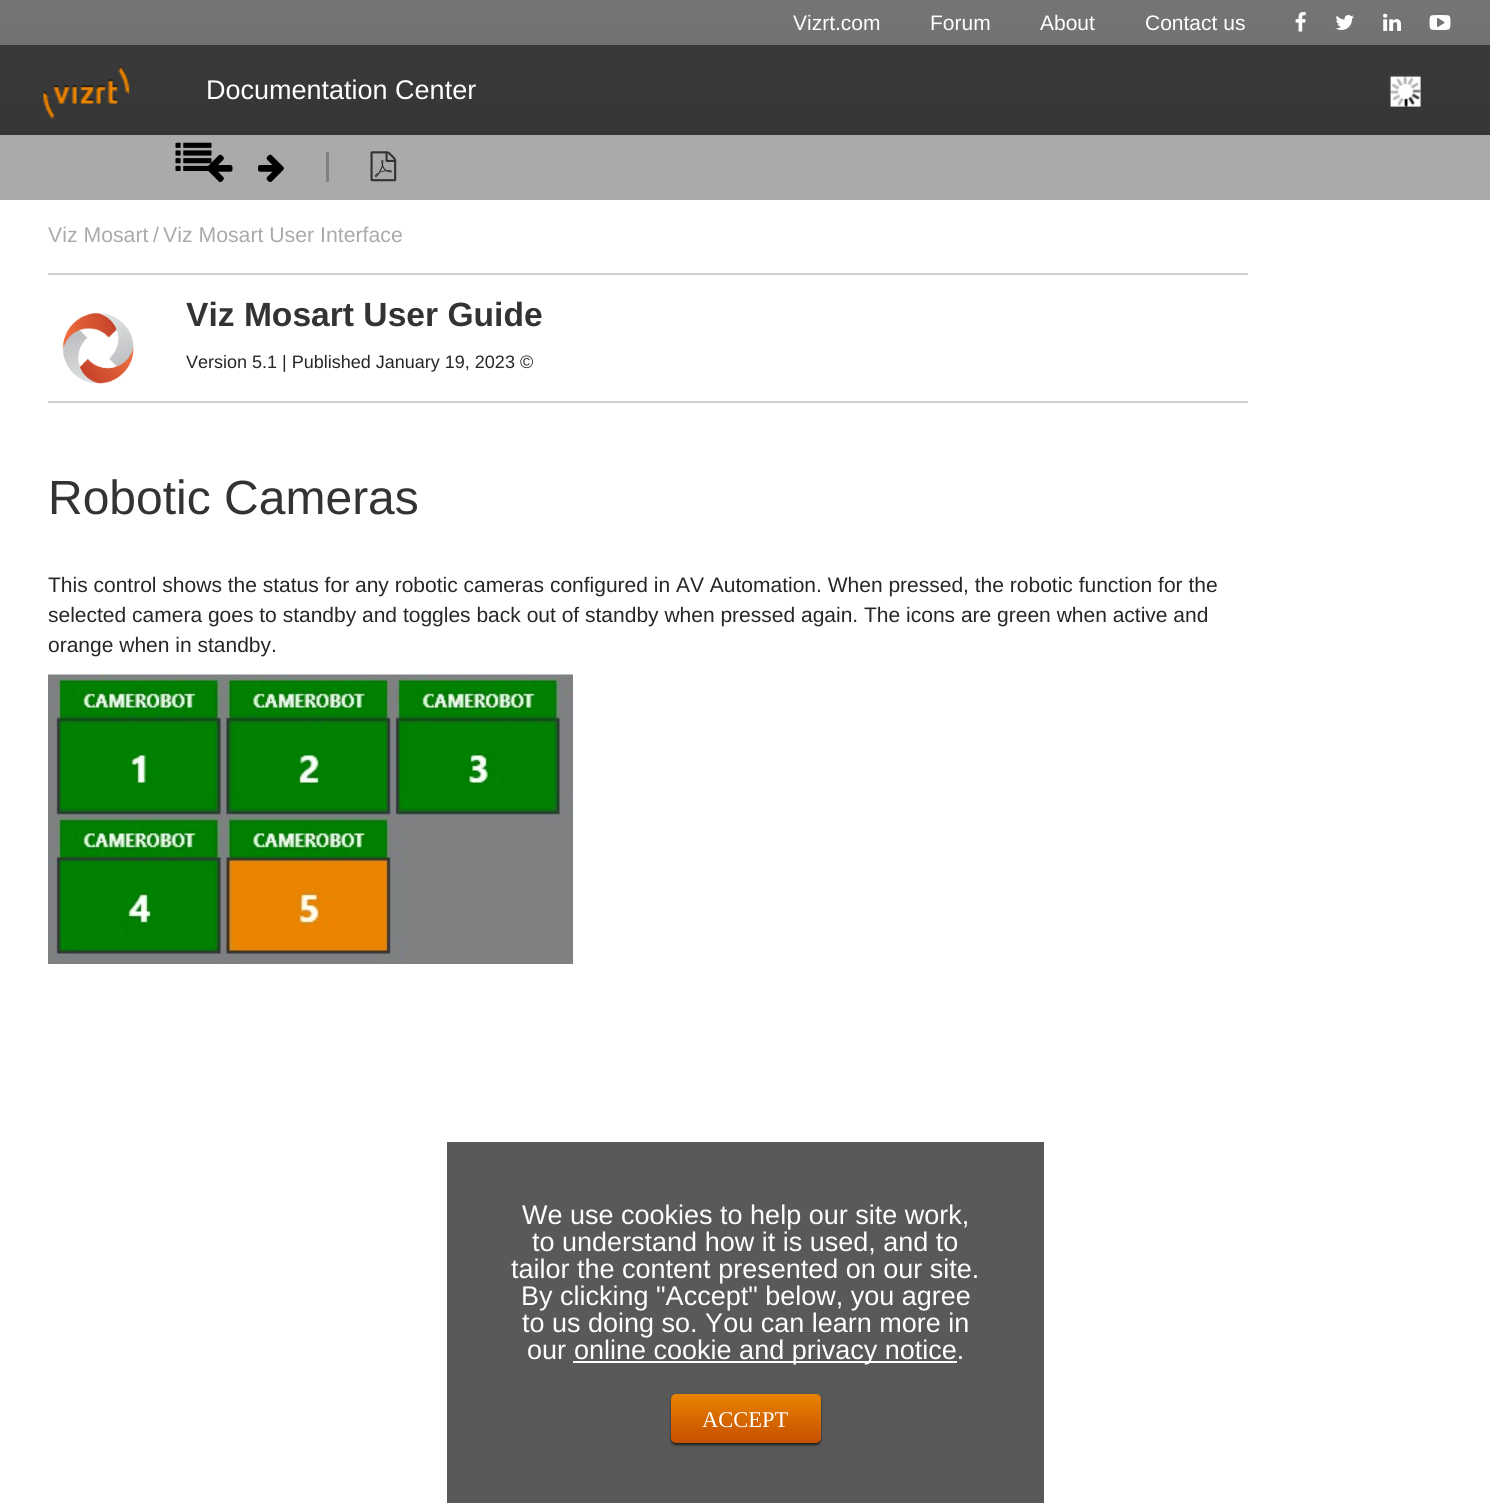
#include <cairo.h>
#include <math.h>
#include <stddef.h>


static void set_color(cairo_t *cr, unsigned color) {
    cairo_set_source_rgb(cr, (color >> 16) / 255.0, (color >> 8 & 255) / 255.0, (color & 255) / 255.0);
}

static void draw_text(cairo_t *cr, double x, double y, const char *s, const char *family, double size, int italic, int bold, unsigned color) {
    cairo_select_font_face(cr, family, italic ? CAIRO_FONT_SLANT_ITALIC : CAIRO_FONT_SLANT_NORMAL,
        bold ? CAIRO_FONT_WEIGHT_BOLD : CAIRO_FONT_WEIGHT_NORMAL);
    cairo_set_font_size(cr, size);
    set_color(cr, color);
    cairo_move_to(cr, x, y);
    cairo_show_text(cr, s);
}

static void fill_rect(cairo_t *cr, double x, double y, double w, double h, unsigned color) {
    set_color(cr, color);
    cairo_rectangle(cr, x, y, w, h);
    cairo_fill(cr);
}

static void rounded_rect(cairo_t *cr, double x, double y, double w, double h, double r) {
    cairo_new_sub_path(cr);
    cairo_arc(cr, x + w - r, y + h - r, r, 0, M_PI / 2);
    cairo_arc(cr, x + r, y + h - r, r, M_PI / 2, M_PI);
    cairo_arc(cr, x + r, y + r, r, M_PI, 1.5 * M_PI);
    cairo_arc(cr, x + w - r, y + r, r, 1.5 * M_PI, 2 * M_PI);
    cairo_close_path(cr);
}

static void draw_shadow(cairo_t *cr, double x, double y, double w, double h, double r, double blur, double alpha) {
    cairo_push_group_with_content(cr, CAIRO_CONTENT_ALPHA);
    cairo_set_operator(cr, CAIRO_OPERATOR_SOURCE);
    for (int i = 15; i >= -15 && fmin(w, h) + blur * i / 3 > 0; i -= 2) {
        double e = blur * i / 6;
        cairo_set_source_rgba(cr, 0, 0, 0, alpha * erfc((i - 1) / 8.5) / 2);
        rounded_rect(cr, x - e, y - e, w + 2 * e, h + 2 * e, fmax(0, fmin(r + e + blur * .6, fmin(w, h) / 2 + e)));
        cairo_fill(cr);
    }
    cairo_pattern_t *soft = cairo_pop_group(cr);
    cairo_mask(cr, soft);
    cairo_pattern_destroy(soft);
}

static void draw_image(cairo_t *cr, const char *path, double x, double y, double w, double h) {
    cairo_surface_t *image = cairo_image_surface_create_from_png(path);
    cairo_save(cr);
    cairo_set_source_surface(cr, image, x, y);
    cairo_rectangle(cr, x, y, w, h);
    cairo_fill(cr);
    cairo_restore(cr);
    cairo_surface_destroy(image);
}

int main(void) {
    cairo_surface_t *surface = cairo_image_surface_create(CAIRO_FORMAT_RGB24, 1490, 1503);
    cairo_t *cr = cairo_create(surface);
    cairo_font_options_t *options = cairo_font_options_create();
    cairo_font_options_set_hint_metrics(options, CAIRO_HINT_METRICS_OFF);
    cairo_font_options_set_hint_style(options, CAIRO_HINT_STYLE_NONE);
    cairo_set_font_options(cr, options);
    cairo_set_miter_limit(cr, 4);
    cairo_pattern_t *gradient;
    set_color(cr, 0xFFFFFF);
    cairo_paint(cr);
    draw_image(cr, "assets/img1.png", 0, 0, 1490, 135);
    cairo_set_source_rgba(cr, 0, 0, 0, 0.5);
    cairo_rectangle(cr, 0, 0, 1490, 45);
    cairo_fill(cr);
    draw_text(cr, 793, 30, "Vizrt.com", "Liberation Sans", 21, 0, 0, 0xFFFFFF);
    draw_text(cr, 930, 30, "Forum", "Liberation Sans", 21, 0, 0, 0xFFFFFF);
    draw_text(cr, 1040, 30, "About", "Liberation Sans", 21, 0, 0, 0xFFFFFF);
    draw_text(cr, 1145, 30, "Contact us", "Liberation Sans", 21, 0, 0, 0xFFFFFF);
    draw_image(cr, "assets/img2.png", 1295, 12, 11, 20);
    draw_image(cr, "assets/img3.png", 1335, 15, 19, 15);
    draw_image(cr, "assets/img4.png", 1383, 13, 18, 18);
    draw_image(cr, "assets/img5.png", 1429, 15, 22, 15);
    cairo_set_source_rgba(cr, 0, 0, 0, 0.75);
    cairo_rectangle(cr, 0, 45, 1490, 90);
    cairo_fill(cr);
    draw_image(cr, "assets/img6.png", 43, 66, 87, 53);
    draw_text(cr, 206, 99, "Documentation Center", "Liberation Sans", 27, 0, 0, 0xFFFFFF);
    draw_image(cr, "assets/img7.png", 1389, 75, 32, 32);
    fill_rect(cr, 0, 135, 1490, 65, 0xAAAAAA);
    draw_image(cr, "assets/img9.png", 208, 154, 25, 29);
    draw_image(cr, "assets/img8.png", 175, 142, 37, 29);
    draw_image(cr, "assets/img10.png", 258, 154, 26, 28);
    fill_rect(cr, 326, 152, 3, 30, 0x808080);
    draw_image(cr, "assets/img11.png", 370, 151, 27, 31);
    draw_text(cr, 48, 242, "Viz Mosart", "Liberation Sans", 21.25, 0, 0, 0xAAAAAA);
    draw_text(cr, 153, 242, "/", "Liberation Sans", 21.25, 0, 0, 0xAAAAAA);
    draw_text(cr, 163, 242, "Viz Mosart User Interface", "Liberation Sans", 21.25, 0, 0, 0xAAAAAA);
    fill_rect(cr, 48, 273, 1200, 2, 0xCFCFCF);
    fill_rect(cr, 48, 401, 1200, 2, 0xCFCFCF);
    draw_image(cr, "assets/img12.png", 62, 312, 72, 72);
    draw_text(cr, 186, 326, "Viz Mosart User Guide", "Liberation Sans", 33.6, 0, 1, 0x333333);
    draw_text(cr, 186, 368, "Version 5.1 | Published January 19, 2023 ©", "Liberation Sans", 18, 0, 0, 0x262626);
    draw_text(cr, 48, 514, "Robotic Cameras", "Liberation Sans", 48, 0, 0, 0x333333);
    draw_text(cr, 48, 592, "This control shows the status for any robotic cameras configured in AV Automation. When pressed, the robotic function for the", "Liberation Sans", 21, 0, 0, 0x262626);
    draw_text(cr, 48, 622, "selected camera goes to standby and toggles back out of standby when pressed again. The icons are green when active and", "Liberation Sans", 21, 0, 0, 0x262626);
    draw_text(cr, 48, 652, "orange when in standby.", "Liberation Sans", 21, 0, 0, 0x262626);
    draw_image(cr, "assets/img13.png", 48, 674, 525, 290);
    fill_rect(cr, 447, 1142, 597, 361, 0x595959);
    draw_text(cr, 522, 1224, "We use cookies to help our site work,", "Liberation Sans", 27, 0, 0, 0xFFFFFF);
    draw_text(cr, 532, 1251, "to understand how it is used, and to", "Liberation Sans", 27, 0, 0, 0xFFFFFF);
    draw_text(cr, 511, 1278, "tailor the content presented on our site.", "Liberation Sans", 27, 0, 0, 0xFFFFFF);
    draw_text(cr, 521, 1305, "By clicking \"Accept\" below, you agree", "Liberation Sans", 27, 0, 0, 0xFFFFFF);
    draw_text(cr, 522, 1332, "to us doing so. You can learn more in", "Liberation Sans", 27, 0, 0, 0xFFFFFF);
    draw_text(cr, 527, 1359, "our", "Liberation Sans", 27, 0, 0, 0xFFFFFF);
    fill_rect(cr, 573, 1361, 384, 2, 0xFFFFFF);
    draw_text(cr, 574, 1359, "online cookie and privacy notice.", "Liberation Sans", 27, 0, 0, 0xFFFFFF);
    set_color(cr, 0x000000);
    draw_shadow(cr, 671, 1395, 150, 50, 5, 1, 0.65);
    gradient = cairo_pattern_create_linear(746, 1394, 746, 1443);
    cairo_pattern_add_color_stop_rgba(gradient, 0, 0.914, 0.514, 0, 1);
    cairo_pattern_add_color_stop_rgba(gradient, 1, 0.773, 0.31, 0, 1);
    cairo_set_source(cr, gradient);
    cairo_pattern_destroy(gradient);
    rounded_rect(cr, 671, 1394, 150, 49, 5);
    cairo_fill(cr);
    draw_text(cr, 702, 1427, "ACCEPT", "Liberation Serif", 22.5, 0, 0, 0xFFFFFF);
    cairo_surface_write_to_png(surface, "output.png");
    cairo_font_options_destroy(options);
    cairo_destroy(cr);
    cairo_surface_destroy(surface);
    return 0;
}
